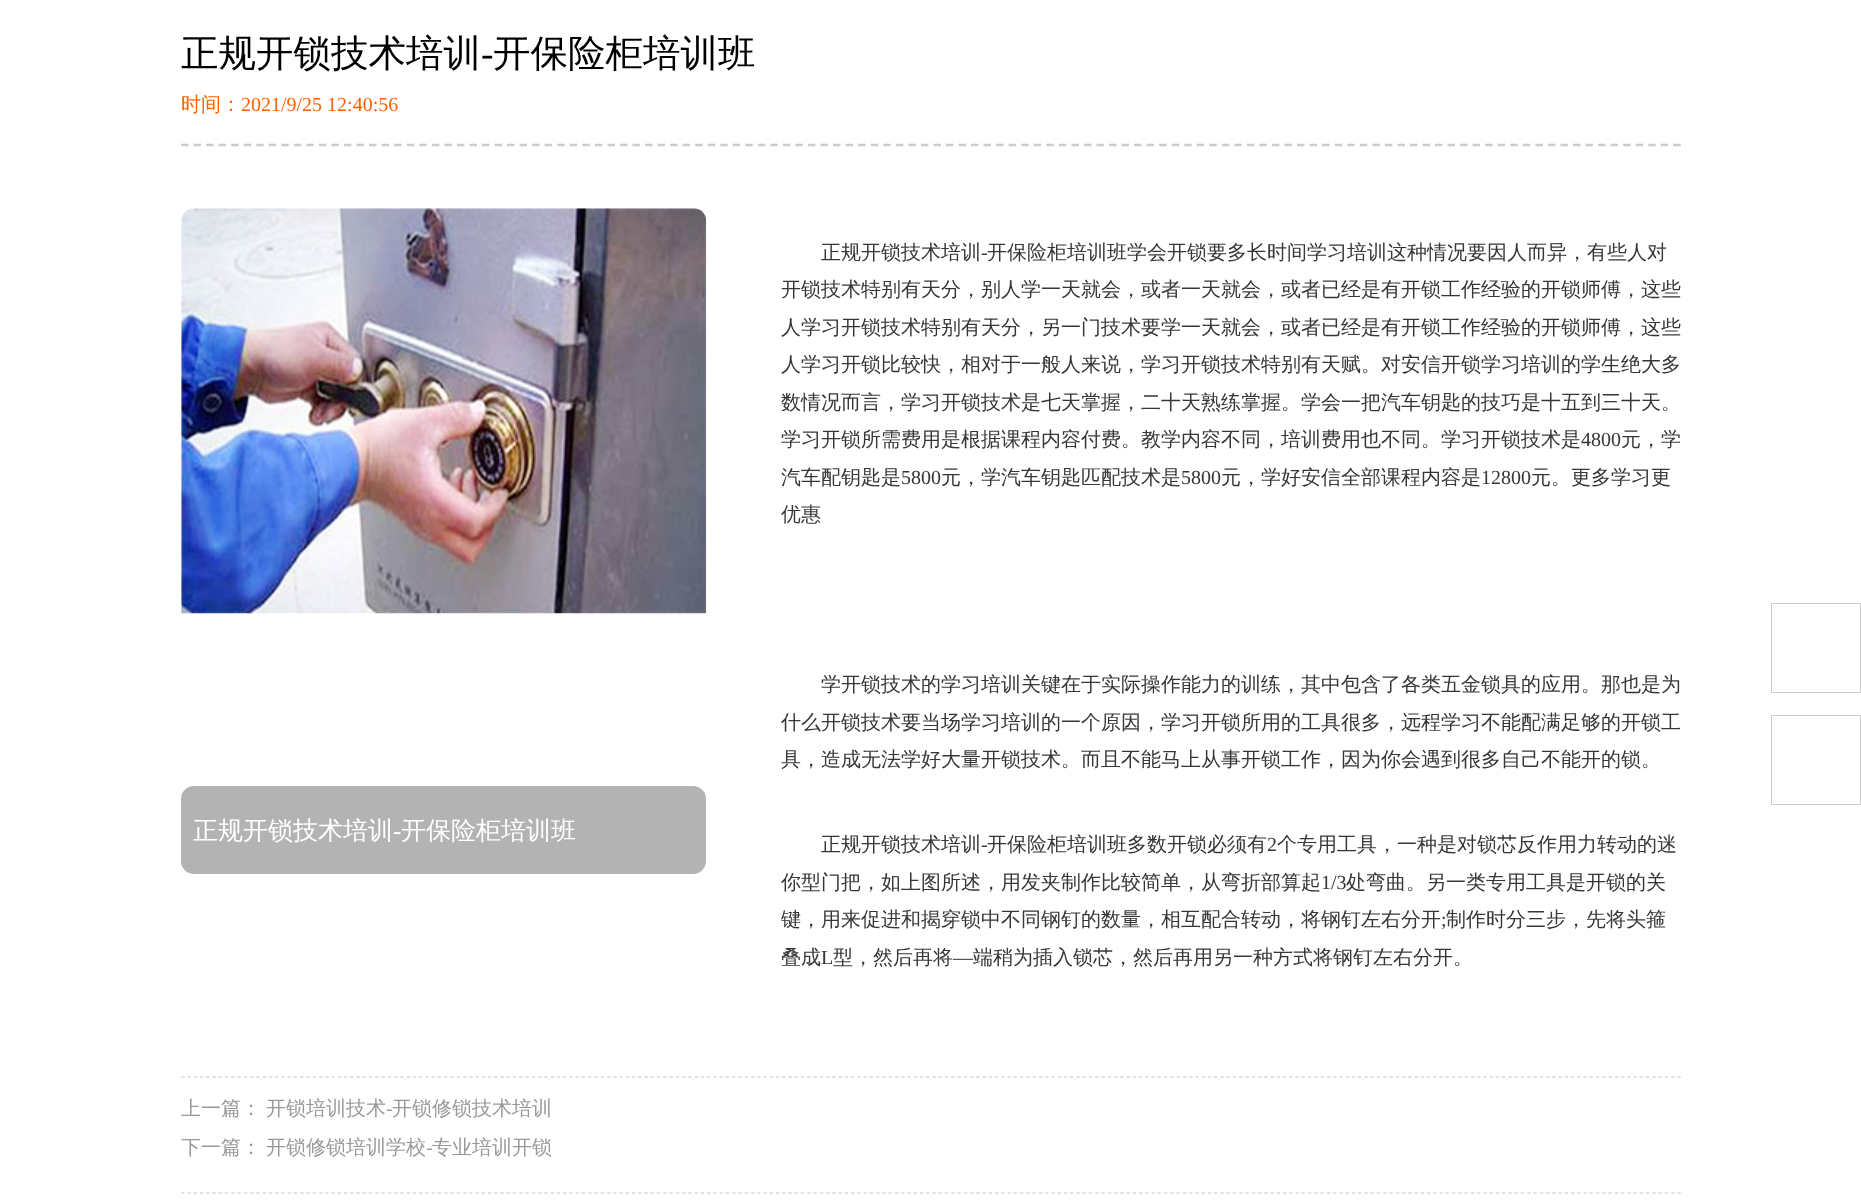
<svg xmlns="http://www.w3.org/2000/svg" width="1861" height="1204">
<style>
.a{font:500 37.5px WenQuanYi Zen Hei;fill:#000}
.b{font:37.5px Liberation Serif;fill:#000}
.c{font:500 20px WenQuanYi Zen Hei;fill:#ff6000}
.d{font:20px Liberation Serif;fill:#ff6000}
.e{font:500 25px WenQuanYi Zen Hei;fill:#fff}
.f{font:25px Liberation Serif;fill:#fff}
.g{font:500 20px WenQuanYi Zen Hei;fill:#363636}
.h{font:20px Liberation Serif;fill:#363636}
.i{font:500 20px WenQuanYi Zen Hei;fill:#999}
.j{font:20px Liberation Serif;fill:#999}
</style>
<rect width="100%" height="100%" fill="#fff"/>
<path fill="none" stroke="#ccc" stroke-width="2.5" stroke-dasharray="7.5 5.04" d="M181 145h1500"/>
<image href="1.png" x="181" y="208" width="526" height="406"/>
<rect fill="#b3b3b3" x="181" y="786" width="525" height="88" rx="13"/>
<path fill="none" stroke="#ccc" stroke-width="1.2" stroke-dasharray="3.75 2.51" d="M181 1077h1500"/>
<path fill="none" stroke="#ccc" stroke-width="1.2" stroke-dasharray="3.75 2.51" d="M181 1193h1500"/>
<path fill="none" stroke="#ccc" d="M1771.5 603.5h89v89H1771.5z"/>
<path fill="none" stroke="#ccc" d="M1771.5 715.5h89v89H1771.5z"/>
<text class="a" x="181" y="66">正规开锁技术培训</text>
<text class="b" x="481" y="66">-</text>
<text class="a" x="493" y="66">开保险柜培训班</text>
<text class="c" x="181" y="111">时间：</text>
<text class="d" x="241" y="111">2021/9/25 12:40:56</text>
<text class="e" x="193" y="839">正规开锁技术培训</text>
<text class="f" x="393" y="839">-</text>
<text class="e" x="401" y="839">开保险柜培训班</text>
<text class="g" x="821" y="259">正规开锁技术培训</text>
<text class="h" x="981" y="259">-</text>
<text class="g" x="987" y="259">开保险柜培训班学会开锁要多长时间学习培训这种情况要因人而异，有些人对</text>
<text class="g" x="781" y="296">开锁技术特别有天分，别人学一天就会，或者一天就会，或者已经是有开锁工作经验的开锁师傅，这些</text>
<text class="g" x="781" y="334">人学习开锁技术特别有天分，另一门技术要学一天就会，或者已经是有开锁工作经验的开锁师傅，这些</text>
<text class="g" x="781" y="371">人学习开锁比较快，相对于一般人来说，学习开锁技术特别有天赋。对安信开锁学习培训的学生绝大多</text>
<text class="g" x="781" y="409">数情况而言，学习开锁技术是七天掌握，二十天熟练掌握。学会一把汽车钥匙的技巧是十五到三十天。</text>
<text class="g" x="781" y="446">学习开锁所需费用是根据课程内容付费。教学内容不同，培训费用也不同。学习开锁技术是</text>
<text class="h" x="1581" y="446">4800</text>
<text class="g" x="1621" y="446">元，学</text>
<text class="g" x="781" y="484">汽车配钥匙是</text>
<text class="h" x="901" y="484">5800</text>
<text class="g" x="941" y="484">元，学汽车钥匙匹配技术是</text>
<text class="h" x="1181" y="484">5800</text>
<text class="g" x="1221" y="484">元，学好安信全部课程内容是</text>
<text class="h" x="1481" y="484">12800</text>
<text class="g" x="1531" y="484">元。更多学习更</text>
<text class="g" x="781" y="521">优惠</text>
<text class="g" x="821" y="691">学开锁技术的学习培训关键在于实际操作能力的训练，其中包含了各类五金锁具的应用。那也是为</text>
<text class="g" x="781" y="729">什么开锁技术要当场学习培训的一个原因，学习开锁所用的工具很多，远程学习不能配满足够的开锁工</text>
<text class="g" x="781" y="766">具，造成无法学好大量开锁技术。而且不能马上从事开锁工作，因为你会遇到很多自己不能开的锁。</text>
<text class="g" x="821" y="851">正规开锁技术培训</text>
<text class="h" x="981" y="851">-</text>
<text class="g" x="987" y="851">开保险柜培训班多数开锁必须有</text>
<text class="h" x="1267" y="851">2</text>
<text class="g" x="1277" y="851">个专用工具，一种是对锁芯反作用力转动的迷</text>
<text class="g" x="781" y="889">你型门把，如上图所述，用发夹制作比较简单，从弯折部算起</text>
<text class="h" x="1321" y="889">1/3</text>
<text class="g" x="1346" y="889">处弯曲。另一类专用工具是开锁的关</text>
<text class="g" x="781" y="926">键，用来促进和揭穿锁中不同钢钉的数量，相互配合转动，将钢钉左右分开</text>
<text class="h" x="1441" y="926">;</text>
<text class="g" x="1446" y="926">制作时分三步，先将头箍</text>
<text class="g" x="781" y="964">叠成</text>
<text class="h" x="821" y="964">L</text>
<text class="g" x="833" y="964">型，然后再将</text>
<text class="h" x="953" y="964">—</text>
<text class="g" x="973" y="964">端稍为插入锁芯，然后再用另一种方式将钢钉左右分开。</text>
<text class="i" x="181" y="1115">上一篇：</text>
<text class="i" x="266" y="1115">开锁培训技术</text>
<text class="j" x="386" y="1115">-</text>
<text class="i" x="392" y="1115">开锁修锁技术培训</text>
<text class="i" x="181" y="1154">下一篇：</text>
<text class="i" x="266" y="1154">开锁修锁培训学校</text>
<text class="j" x="426" y="1154">-</text>
<text class="i" x="432" y="1154">专业培训开锁</text>
</svg>
